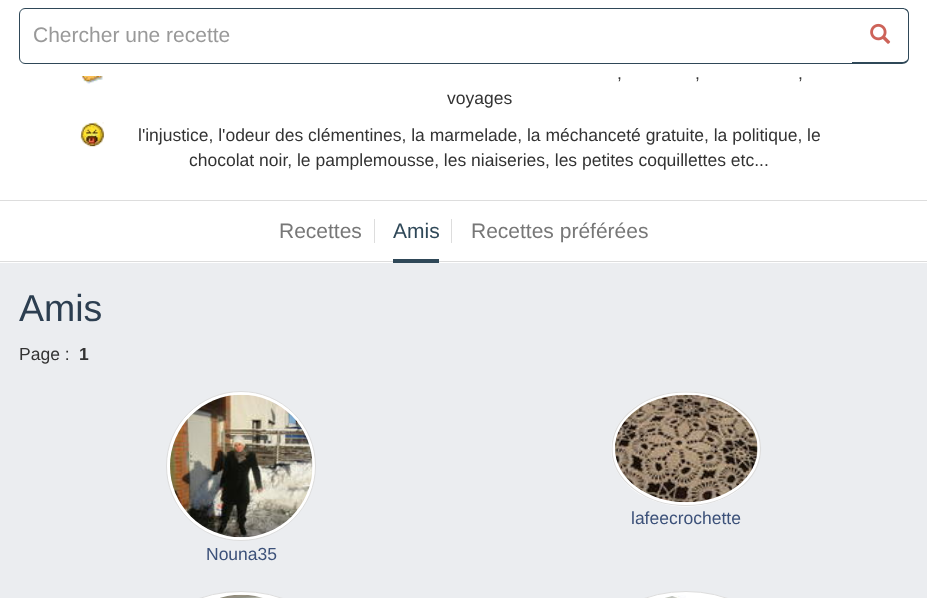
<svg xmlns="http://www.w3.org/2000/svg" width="927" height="598">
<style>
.a{font:21px Liberation Sans;fill:#999}
.b{font:17.5px Liberation Sans;fill:#333}
.c{font:21px Liberation Sans;fill:#777}
.d{font:21px Liberation Sans;fill:#2f4858}
.e{font:37.5px Liberation Sans;fill:#2c3e50}
.f{font:bold 17.5px Liberation Sans;fill:#333}
.g{font:17.5px Liberation Sans;fill:#3c5179}
</style>
<rect width="100%" height="100%" fill="#ebedf0"/>
<path fill="#fff" d="M0 0h927v200H0z"/>
<path fill="none" stroke="#2f4858" d="M25 8.5h828.5v55h-828.5c-3 0-5.5-2.5-5.5-5.5v-44c0-3 2.5-5.5 5.5-5.5z"/>
<path fill="#fff" d="M853 8h50c3.5 0 6 2.5 6 6v44c0 3.5-2.5 6-6 6h-50z"/>
<path fill="#2f4858" fill-rule="evenodd" d="M852 8h50c4 0 7 2 7 6v44c0 3-3 6-7 6h-50zm0 1h50c3 0 6 2 6 5v44c0 2-3 4-6 4h-50z"/>
<image href="1.png" x="870" y="23" width="21" height="21"/>
<image href="2.png" x="81" y="76" width="22" height="8"/>
<image href="3.png" x="80" y="122" width="25" height="25"/>
<path fill="#fff" d="M0 201h927v62H0z"/>
<path fill="#ddd" d="M0 200h927v1H0z"/>
<path fill="#ddd" d="M0 261h927v1H0z"/>
<path fill="#ddd" d="M374 219h1v24H374z"/>
<path fill="#2f4858" d="M393 259h46v4H393z"/>
<path fill="#ddd" d="M451 219h1v24H451z"/>
<ellipse fill="#fff" cx="686" cy="449" rx="75" ry="57.5"/>
<path fill="none" stroke="#ddd" stroke-width="1.2" d="M686 392c41.5 0 74.5 25.5 74.5 57c0 31-33 56.5-74.5 56.5c-41 0-74-25.5-74-56.5c0-31.5 33-57 74-57z"/>
<image href="4.png" x="615" y="394" width="143" height="109"/>
<circle fill="#fff" stroke="#ddd" cx="241" cy="466" r="74.5"/>
<image href="5.png" x="170" y="394" width="143" height="144"/>
<rect fill="#fff" stroke="#ddd" x="166.5" y="591.5" width="149" height="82" rx="74.5"/>
<image href="6.png" x="220" y="594" width="43" height="4"/>
<rect fill="#fff" stroke="#ddd" x="611.5" y="591.5" width="149" height="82" rx="74.5"/>
<image href="7.png" x="665" y="595" width="21" height="3"/>
<text class="a" x="33" y="42">Chercher une recette</text>
<text class="b" x="617" y="79">,</text>
<text class="b" x="695" y="79">,</text>
<text class="b" x="798" y="79">,</text>
<text class="b" x="447" y="104">voyages</text>
<text class="b" x="138" y="141">l'injustice, l'odeur des clémentines, la marmelade, la méchanceté gratuite, la politique, le</text>
<text class="b" x="189" y="166">chocolat noir, le pamplemousse, les niaiseries, les petites coquillettes etc...</text>
<text class="c" x="279" y="238">Recettes</text>
<text class="d" x="393" y="238">Amis</text>
<text class="c" x="471" y="238">Recettes préférées</text>
<text class="e" x="19" y="321">Amis</text>
<text class="b" x="19" y="360">Page :</text>
<text class="f" x="79" y="360">1</text>
<text class="g" x="631" y="524">lafeecrochette</text>
<text class="g" x="206" y="560">Nouna35</text>
</svg>
